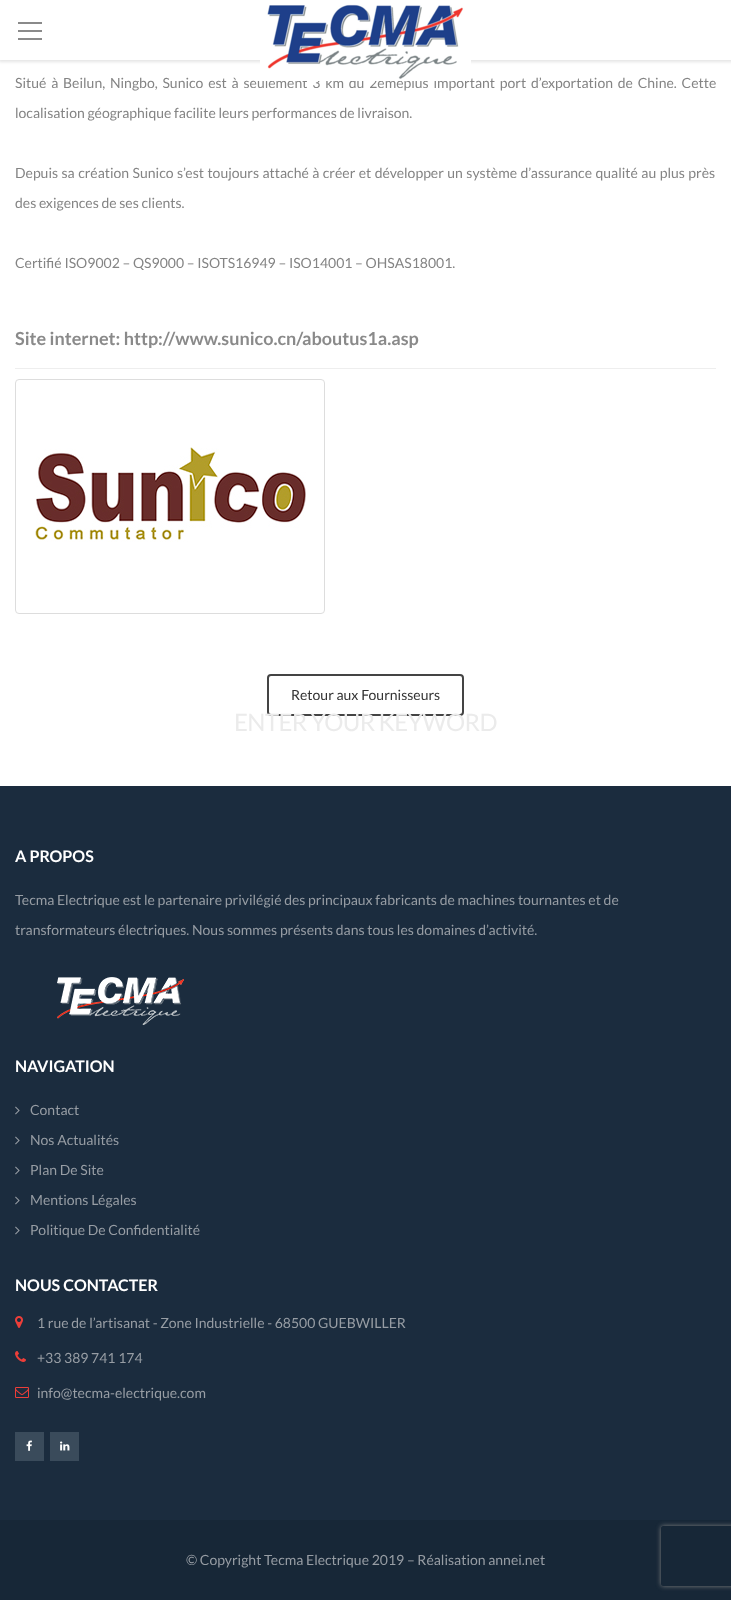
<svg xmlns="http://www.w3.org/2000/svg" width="731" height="1600">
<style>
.a{font:14px Lato;fill:#848484}
.b{font:bold 18px Lato;fill:#8a8a8a}
.c{font:14px Lato;fill:#333}
.d{font:24px Lato;letter-spacing:-0.6px;fill:#ebebeb}
.e{font:bold 16px Lato;fill:#fff}
.f{font:14px Lato;fill:#979da4}
</style>
<defs>
<clipPath id="clip1"><path d="M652 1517h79v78h-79zm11 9h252c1 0 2 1 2 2v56c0 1-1 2-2 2h-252c-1 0-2-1-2-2v-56c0-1 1-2 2-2z" clip-rule="evenodd"/></clipPath>
</defs>
<rect width="100%" height="100%" fill="#fff"/>
<path fill="#0000001a" filter="blur(1.5px)" d="M-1 -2h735v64H-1z"/>
<path fill="#fff" d="M0 0h731v60H0z"/>
<path fill="#8a8a8a" d="M18 22h24v2H18z"/>
<path fill="#8a8a8a" d="M18 30h24v2H18z"/>
<path fill="#8a8a8a" d="M18 38h24v2H18z"/>
<path fill="#eee" d="M15 368h701v1H15z"/>
<rect fill="none" stroke="#ddd" x="15.5" y="379.5" width="309" height="234" rx="3.5"/>
<image href="2.png" x="35" y="447" width="271" height="95"/>
<rect fill="none" stroke="#444" stroke-width="2" x="268" y="675" width="195" height="40" rx="3"/>
<path fill="#1b2c3e" d="M0 786h731v734H0z"/>
<image href="3.png" x="57" y="977" width="127" height="48"/>
<image href="4.png" x="15" y="1106" width="5" height="9"/>
<image href="4.png" x="15" y="1136" width="5" height="9"/>
<image href="4.png" x="15" y="1166" width="5" height="9"/>
<image href="4.png" x="15" y="1196" width="5" height="9"/>
<image href="4.png" x="15" y="1226" width="5" height="9"/>
<image href="5.png" x="15" y="1316" width="8" height="12"/>
<image href="6.png" x="15" y="1351" width="11" height="11"/>
<image href="7.png" x="15" y="1387" width="14" height="11"/>
<path fill="#3a4b5b" d="M15 1432h29v29H15z"/>
<image href="8.png" x="26" y="1440" width="6" height="11"/>
<path fill="#3a4b5b" d="M50 1432h29v29H50z"/>
<image href="9.png" x="60" y="1441" width="10" height="10"/>
<path fill="#172737" d="M0 1520h731v80H0z"/>
<g clip-path="url(#clip1)">
<rect fill="#808080" filter="blur(2.5px)" x="661" y="1526" width="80" height="60" rx="2"/>
</g>
<text class="a" x="15" y="88" word-spacing="2.1">Situé à Beilun, Ningbo, Sunico est à seulement 3 km du 2èmeplus important port d’exportation de Chine. Cette</text>
<image href="1.png" x="260" y="4" width="211" height="77"/>
<text class="a" x="15" y="118">localisation géographique facilite leurs performances de livraison.</text>
<text class="a" x="15" y="178" word-spacing="0.75">Depuis sa création Sunico s’est toujours attaché à créer et développer un système d’assurance qualité au plus près</text>
<text class="a" x="15" y="208">des exigences de ses clients.</text>
<text class="a" x="15" y="268">Certifié ISO9002 – QS9000 – ISOTS16949 – ISO14001 – OHSAS18001.</text>
<text class="b" x="15" y="345">Site internet: http://www.sunico.cn/aboutus1a.asp</text>
<text class="c" x="291" y="700">Retour aux Fournisseurs</text>
<text class="d" x="234" y="731">ENTER YOUR KEYWORD</text>
<text class="e" x="15" y="862">A PROPOS</text>
<text class="f" x="15" y="905">Tecma Electrique est le partenaire privilégié des principaux fabricants de machines tournantes et de</text>
<text class="f" x="15" y="935">transformateurs électriques. Nous sommes présents dans tous les domaines d’activité.</text>
<text class="e" x="15" y="1072">NAVIGATION</text>
<text class="f" x="30" y="1115">Contact</text>
<text class="f" x="30" y="1145">Nos Actualités</text>
<text class="f" x="30" y="1175">Plan De Site</text>
<text class="f" x="30" y="1205">Mentions Légales</text>
<text class="f" x="30" y="1235">Politique De Confidentialité</text>
<text class="e" x="15" y="1291">NOUS CONTACTER</text>
<text class="f" x="37" y="1328">1 rue de l’artisanat - Zone Industrielle - 68500 GUEBWILLER</text>
<text class="f" x="37" y="1363">+33 389 741 174</text>
<text class="f" x="37" y="1398">info@tecma-electrique.com</text>
<text class="f" x="186" y="1565">© Copyright Tecma Electrique 2019 – Réalisation annei.net</text>
</svg>
